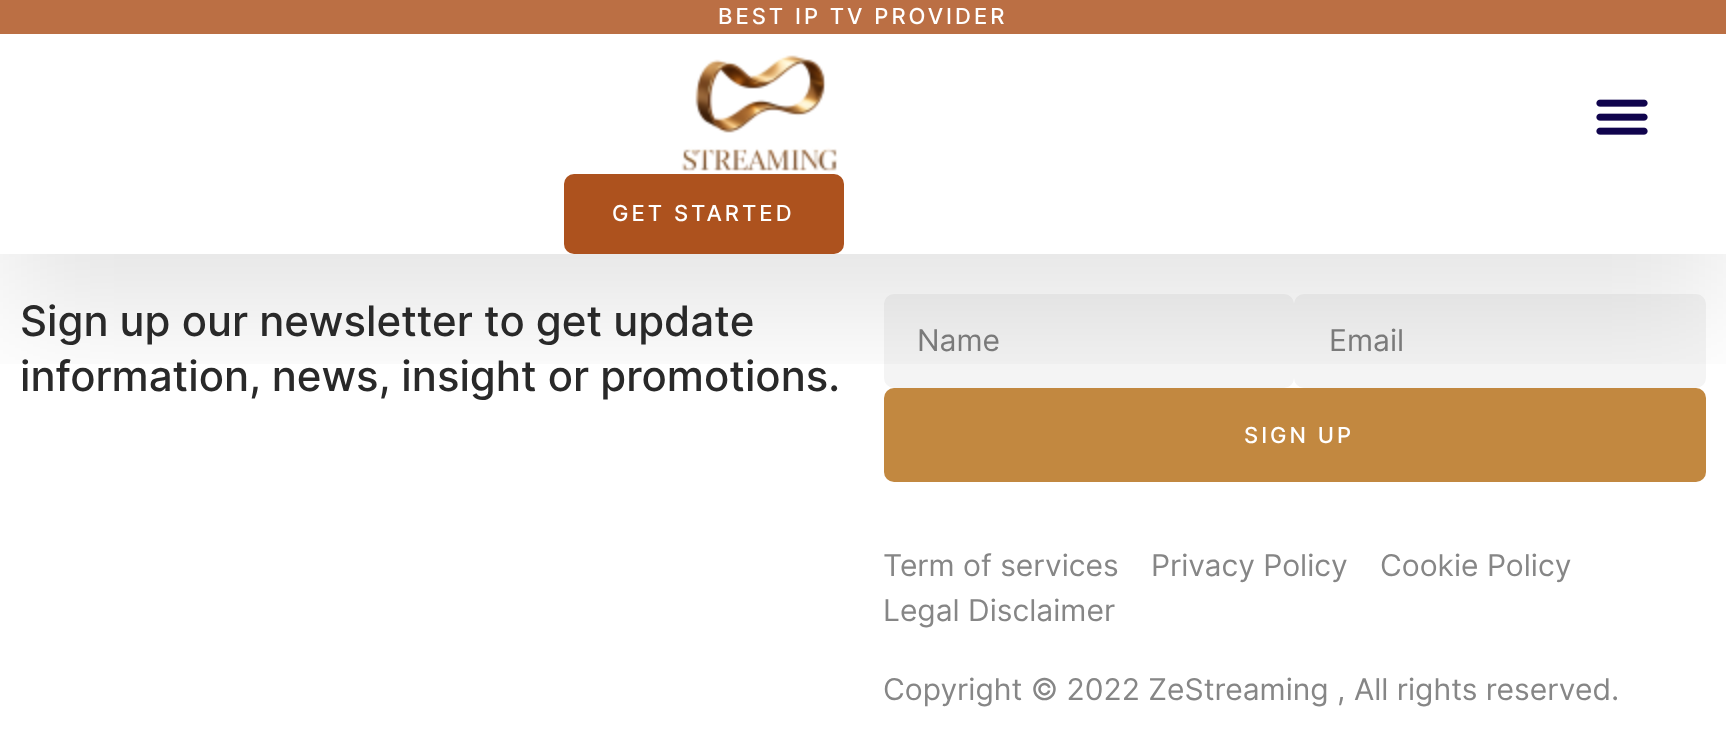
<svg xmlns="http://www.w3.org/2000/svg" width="1726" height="755">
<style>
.a{font:500 22px Inter;letter-spacing:3px;fill:#fff}
.b{font:500 42px Inter;fill:#292929}
.c{font:30px Inter;fill:#7a7a7a}
.d{font:30px Inter;fill:#868686}
</style>
<defs>
<clipPath id="clip1"><path d="M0 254h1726v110H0z"/></clipPath>
</defs>
<rect width="100%" height="100%" fill="#fff"/>
<path fill="#bb6f44" d="M0 0h1726v34H0z"/>
<rect fill="#f4f4f4" stroke="#f4f4f4" stroke-width="2" x="885" y="295" width="408" height="92" rx="9"/>
<rect fill="#f4f4f4" stroke="#f4f4f4" stroke-width="2" x="1295" y="295" width="410" height="92" rx="9"/>
<rect fill="#c28840" x="884" y="388" width="822" height="94" rx="10"/>
<g clip-path="url(#clip1)">
<path fill="#0000001a" filter="blur(60px)" d="M0 114h1726v200H0z"/>
</g>
<image href="1.png" x="681" y="55" width="157" height="117"/>
<image href="2.png" x="1596" y="99" width="52" height="36"/>
<rect fill="#ad521e" x="564" y="174" width="280" height="80" rx="10"/>
<text class="a" x="718" y="24">BEST IP TV PROVIDER</text>
<text class="a" x="612" y="221">GET STARTED</text>
<text class="b" x="20" y="336">Sign up our newsletter to get update</text>
<text class="b" x="20" y="391">information, news, insight or promotions.</text>
<text class="c" x="917" y="351">Name</text>
<text class="c" x="1329" y="351">Email</text>
<text class="a" x="1244" y="443">SIGN UP</text>
<text class="d" x="883" y="576">Term of services</text>
<text class="d" x="1151" y="576">Privacy Policy</text>
<text class="d" x="1380" y="576">Cookie Policy</text>
<text class="d" x="883" y="621">Legal Disclaimer</text>
<text class="d" x="883" y="700">Copyright © 2022 ZeStreaming , All rights reserved.</text>
</svg>
